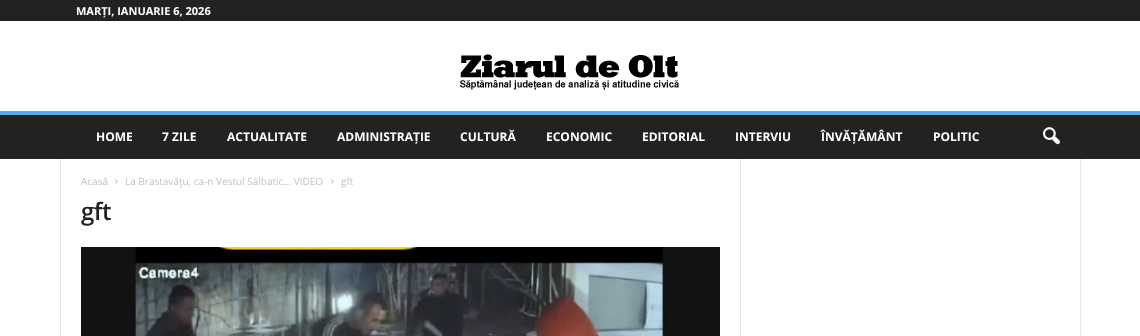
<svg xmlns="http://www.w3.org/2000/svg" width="1140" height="336">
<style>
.a{font:bold 11px Open Sans;fill:#fff}
.b{font:bold 12px Open Sans;fill:#fff}
.c{font:10px Open Sans;fill:#c3c3c3}
.d{font:600 24px Open Sans;letter-spacing:-0.5px;fill:#222}
</style>
<rect width="100%" height="100%" fill="#fff"/>
<path fill="#222" d="M0 0h1140v21H0z"/>
<image href="1.png" x="460" y="54" width="219" height="37"/>
<path fill="#222" d="M0 115h1140v44H0z"/>
<path fill="#4db2ec" d="M0 111h1140v4H0z"/>
<image href="2.png" x="1043" y="127" width="17" height="18"/>
<path fill="#e6e6e6" d="M60 159h1v177H60z"/>
<image href="3.png" x="115" y="179" width="3" height="5"/>
<image href="3.png" x="331" y="179" width="3" height="5"/>
<image href="4.png" x="81" y="247" width="639" height="89"/>
<path fill="#e6e6e6" d="M740 159h1v177H740z"/>
<path fill="#e6e6e6" d="M1080 159h1v177H1080z"/>
<text class="a" x="76" y="15">MARȚI, IANUARIE 6, 2026</text>
<text class="b" x="96" y="141">HOME</text>
<text class="b" x="162" y="141">7 ZILE</text>
<text class="b" x="227" y="141">ACTUALITATE</text>
<text class="b" x="337" y="141">ADMINISTRAȚIE</text>
<text class="b" x="460" y="141">CULTURĂ</text>
<text class="b" x="546" y="141">ECONOMIC</text>
<text class="b" x="642" y="141">EDITORIAL</text>
<text class="b" x="735" y="141">INTERVIU</text>
<text class="b" x="821" y="141">ÎNVĂȚĂMÂNT</text>
<text class="b" x="933" y="141">POLITIC</text>
<text class="c" x="81" y="185">Acasă</text>
<text class="c" x="125" y="185">La Brastavăţu, ca-n Vestul Sălbatic… VIDEO</text>
<text class="c" x="341" y="185">gft</text>
<text class="d" x="81" y="220">gft</text>
</svg>
